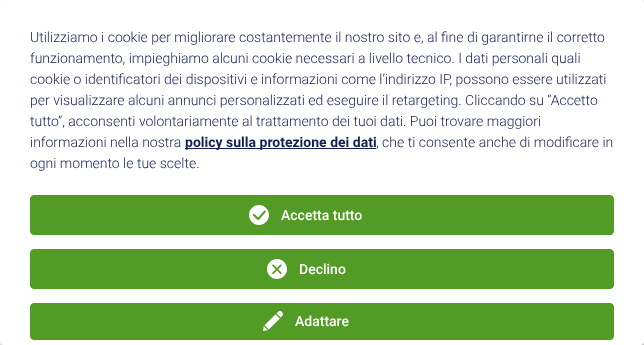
<svg xmlns="http://www.w3.org/2000/svg" width="644" height="345">
<style>
.a{font:300 14px Roboto;fill:#161f57}
.b{font:bold 14px Roboto;fill:#161f57}
.c{font:500 14px Roboto;fill:#fff}
</style>
<rect width="100%" height="100%" fill="#fff"/>
<rect fill="#00000030" filter="blur(5px)" x="5" y="5" width="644" height="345" rx="4"/>
<rect fill="#00000033" filter="blur(3px)" y="4" width="644" height="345" rx="4"/>
<rect fill="#fff" width="644" height="345" rx="4"/>
<path fill="#161f57" d="M185 148h191v1H185z"/>
<rect fill="#529b25" stroke="#529b25" x="30.5" y="195.5" width="583" height="39" rx="3.5"/>
<image href="1.png" x="249" y="205" width="20" height="20"/>
<rect fill="#529b25" stroke="#529b25" x="30.5" y="249.5" width="583" height="39" rx="3.5"/>
<image href="2.png" x="267" y="259" width="20" height="20"/>
<rect fill="#529b25" stroke="#529b25" x="30.5" y="303.5" width="583" height="36" rx="3.5"/>
<image href="3.png" x="263" y="311" width="20" height="20"/>
<text class="a" x="30" y="42">Utilizziamo i cookie per migliorare costantemente il nostro sito e, al fine di garantirne il corretto</text>
<text class="a" x="30" y="63">funzionamento, impieghiamo alcuni cookie necessari a livello tecnico. I dati personali quali</text>
<text class="a" x="30" y="84">cookie o identificatori dei dispositivi e informazioni come l’indirizzo IP, possono essere utilizzati</text>
<text class="a" x="30" y="105">per visualizzare alcuni annunci personalizzati ed eseguire il retargeting. Cliccando su “Accetto</text>
<text class="a" x="30" y="126">tutto”, acconsenti volontariamente al trattamento dei tuoi dati. Puoi trovare maggiori</text>
<text class="a" x="30" y="147">informazioni nella nostra</text>
<text class="b" x="185" y="147">policy sulla protezione dei dati</text>
<text class="a" x="376" y="147">, che ti consente anche di modificare in</text>
<text class="a" x="30" y="168">ogni momento le tue scelte.</text>
<text class="c" x="281" y="220">Accetta tutto</text>
<text class="c" x="299" y="274">Declino</text>
<text class="c" x="295" y="326">Adattare</text>
</svg>
